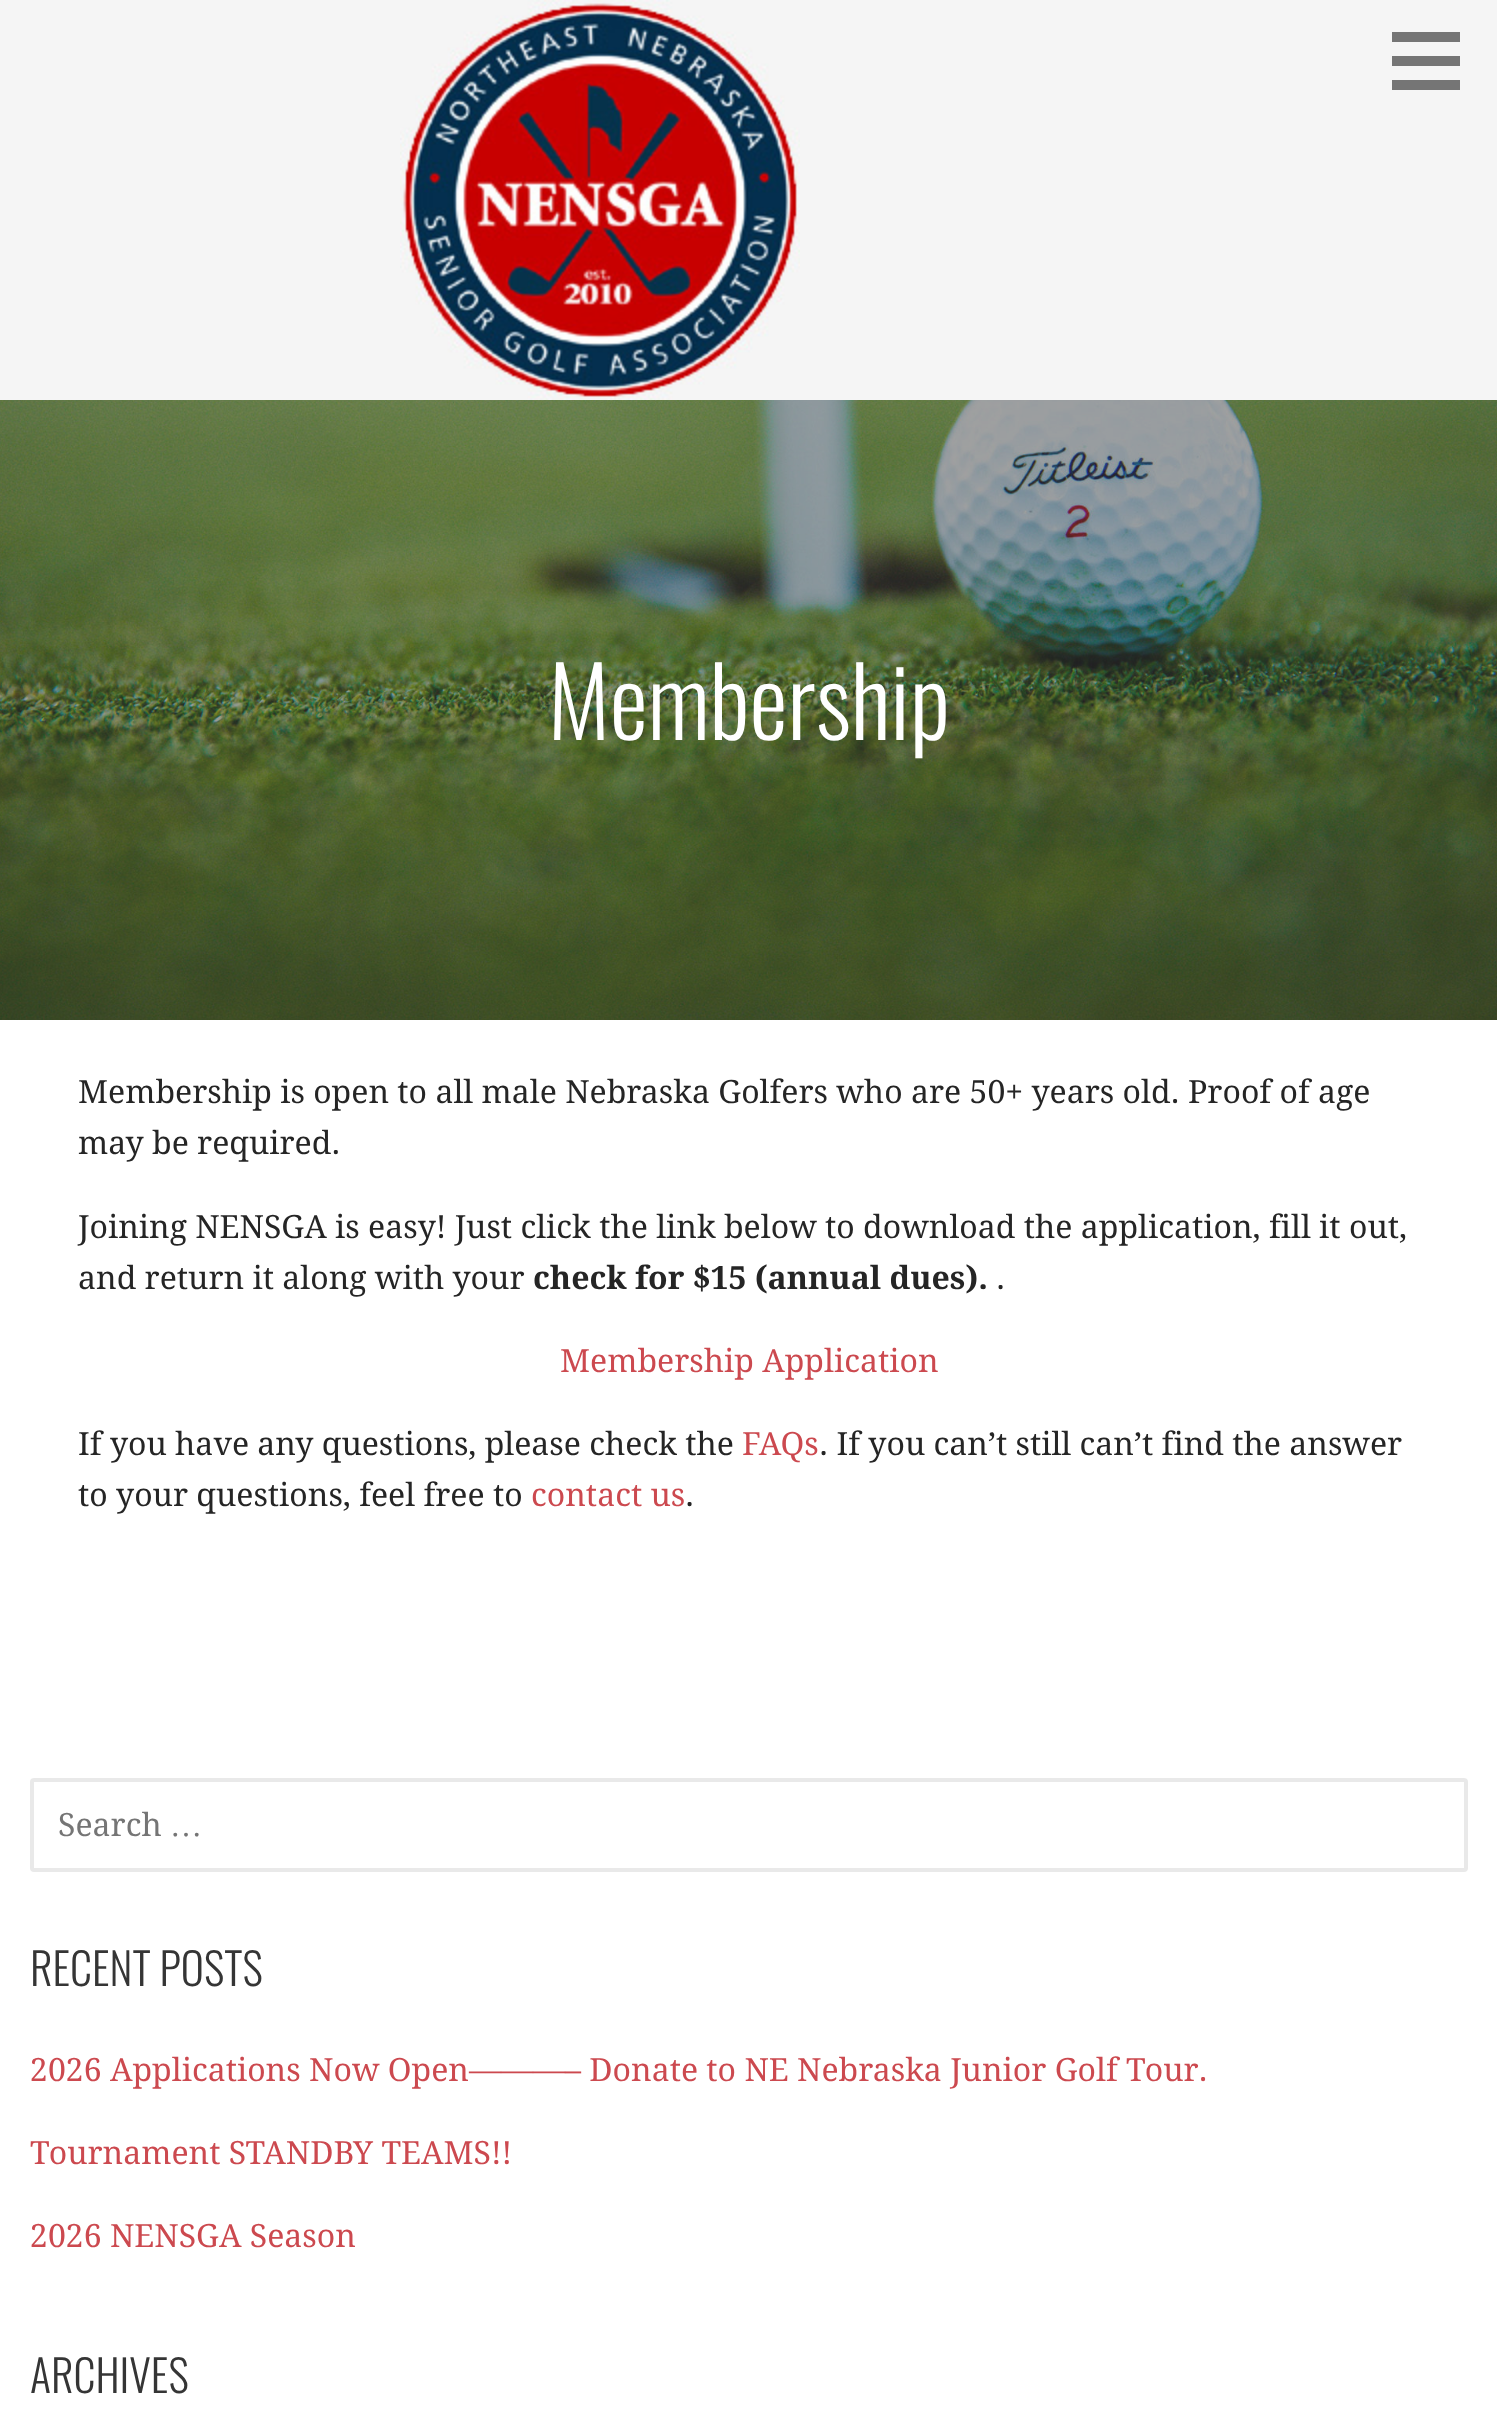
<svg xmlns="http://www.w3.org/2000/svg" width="1497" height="2427">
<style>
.a{font:300 96px Oswald;fill:#fff}
.b{font:32px Droid Serif;fill:#252525}
.c{font:bold 32px Droid Serif;fill:#252525}
.d{font:32px Droid Serif;fill:#cc494f}
.e{font:32px Droid Serif;fill:#757575}
.f{font:32px Liberation Serif;fill:#757575}
.g{font:300 44px Oswald;fill:#353535}
</style>
<rect width="100%" height="100%" fill="#fff"/>
<image href="1.png" x="0" y="400" width="1497" height="620"/>
<path fill="#f5f5f5" d="M0 0h1497v400H0z"/>
<image href="2.png" x="400" y="0" width="400" height="400"/>
<path fill="#757575" d="M1392 32h68v10H1392z"/>
<path fill="#757575" d="M1392 56h68v10H1392z"/>
<path fill="#757575" d="M1392 80h68v10H1392z"/>
<rect fill="none" stroke="#e9e9e9" stroke-width="4" x="32" y="1780" width="1434" height="90" rx="2"/>
<text class="a" x="548" y="740">Membership</text>
<text class="b" x="78" y="1103">Membership is open to all male Nebraska Golfers who are 50+ years old. Proof of age</text>
<text class="b" x="78" y="1154">may be required.</text>
<text class="b" x="78" y="1238">Joining NENSGA is easy! Just click the link below to download the application, fill it out,</text>
<text class="b" x="78" y="1289">and return it along with your</text>
<text class="c" x="533" y="1289">check for $15 (annual dues).</text>
<text class="b" x="996" y="1289">.</text>
<text class="d" x="560" y="1372">Membership Application</text>
<text class="b" x="78" y="1455">If you have any questions, please check the</text>
<text class="d" x="742" y="1455">FAQs</text>
<text class="b" x="819" y="1455">. If you can’t still can’t find the answer</text>
<text class="b" x="78" y="1506">to your questions, feel free to</text>
<text class="d" x="531" y="1506">contact us</text>
<text class="b" x="685" y="1506">.</text>
<text class="e" x="58" y="1836">Search</text>
<text class="f" x="170" y="1836">…</text>
<text class="g" x="30" y="1986">RECENT POSTS</text>
<text class="d" x="30" y="2081">2026 Applications Now Open———– Donate to NE Nebraska Junior Golf Tour.</text>
<text class="d" x="30" y="2164">Tournament STANDBY TEAMS!!</text>
<text class="d" x="30" y="2247">2026 NENSGA Season</text>
<text class="g" x="30" y="2393">ARCHIVES</text>
</svg>
